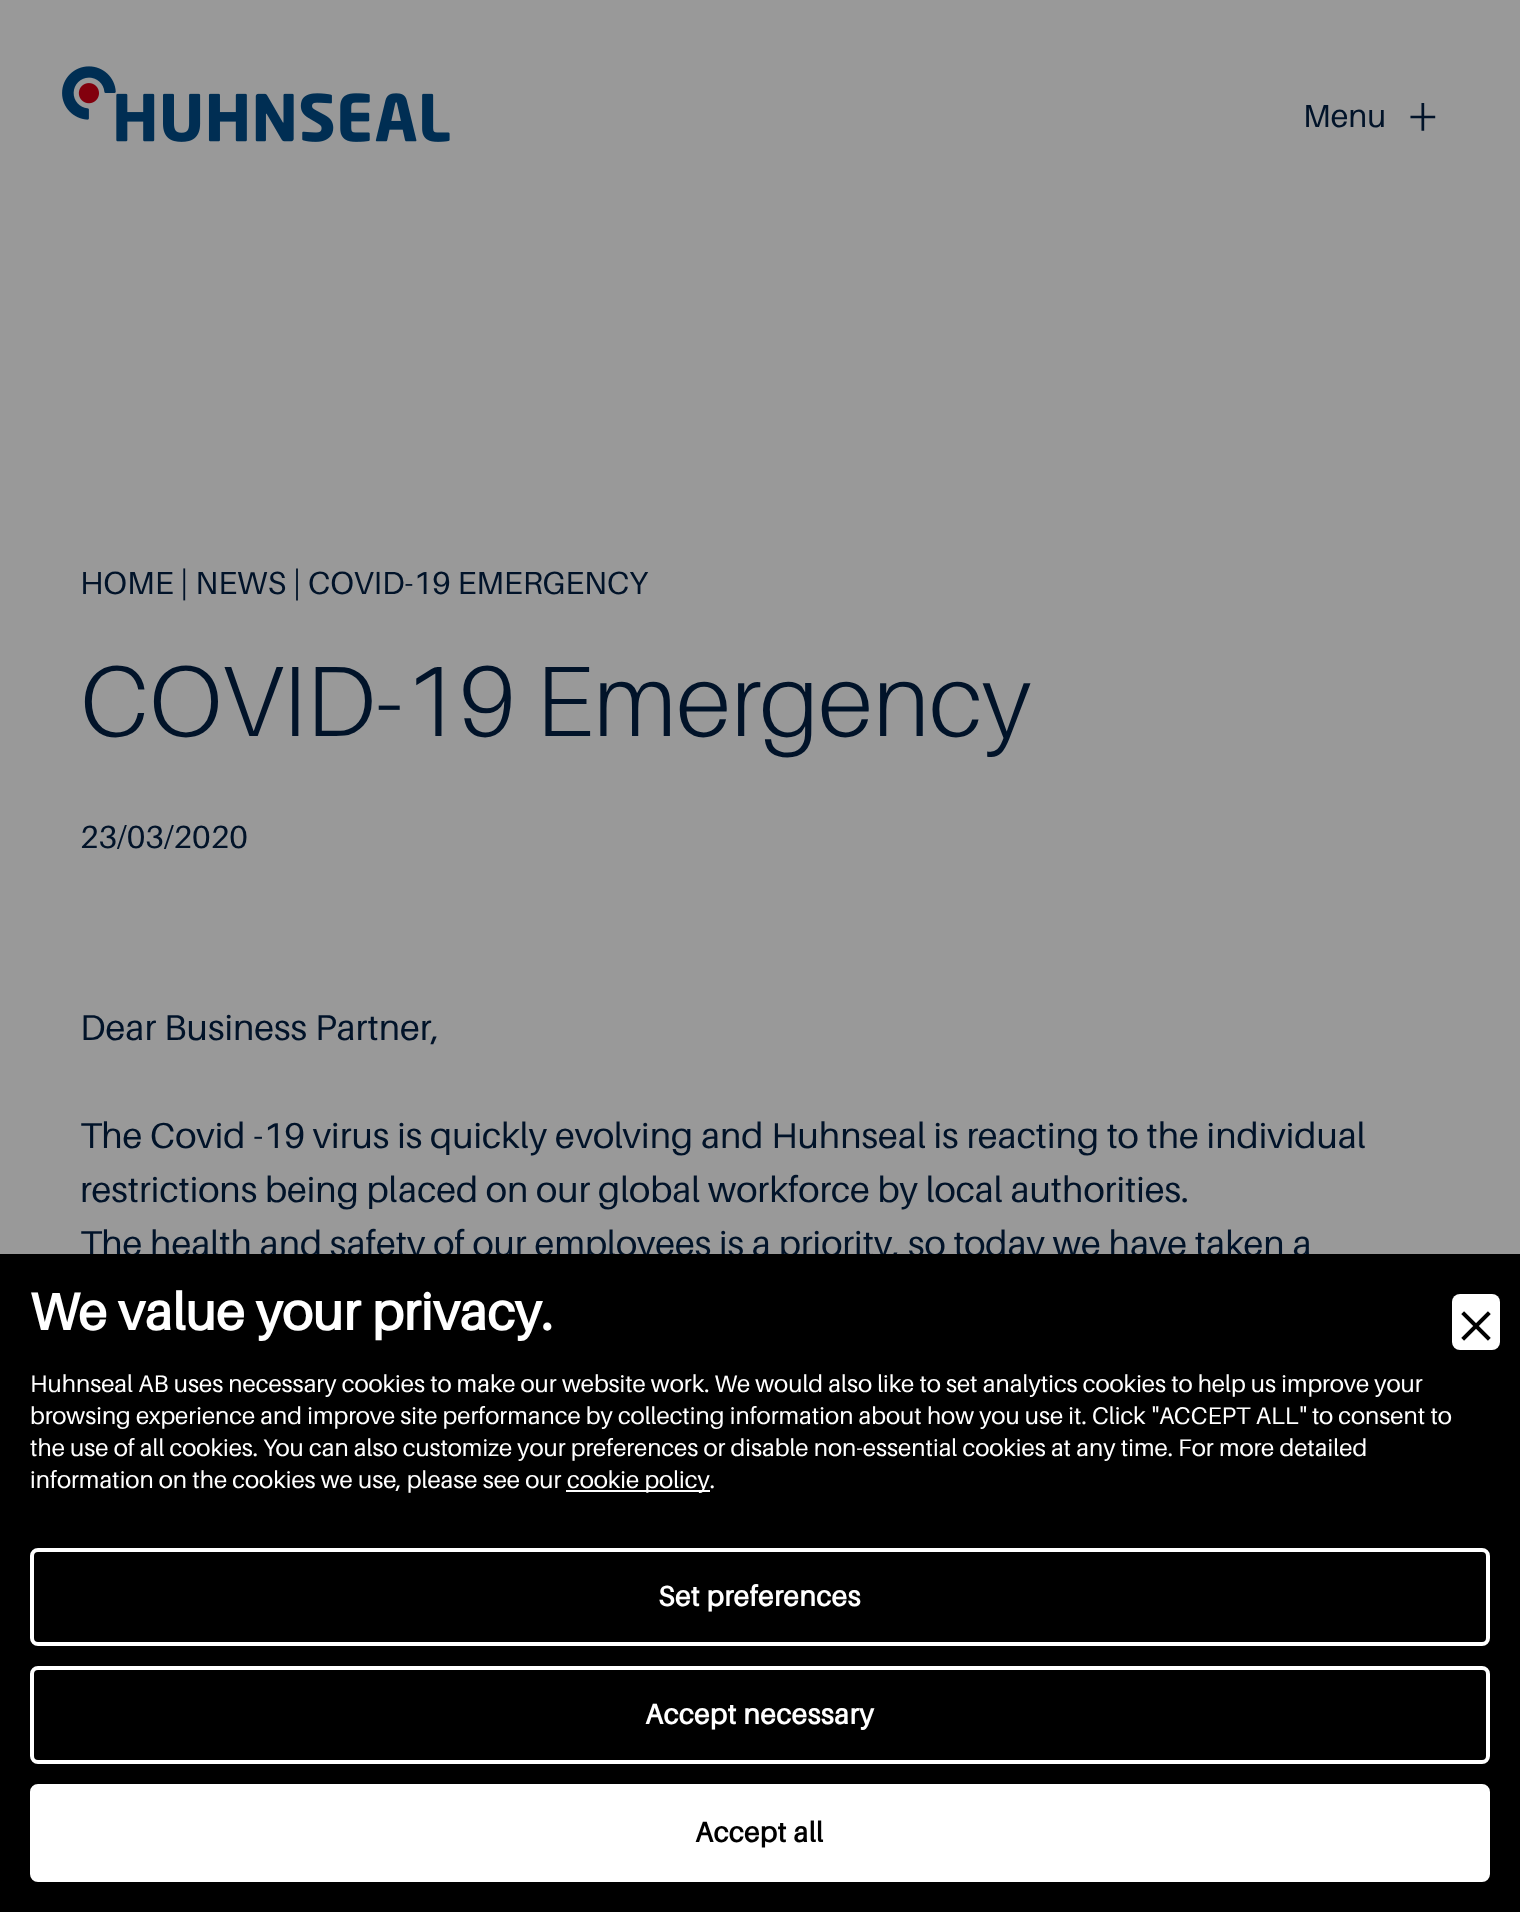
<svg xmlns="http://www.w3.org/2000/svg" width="1520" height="1912">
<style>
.a{font:32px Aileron;fill:#011329}
.b{font:300 60px Aileron;fill:#011329}
.c{font:300 100px Aileron;fill:#011329}
.d{font:36px Aileron;fill:#011329}
.e{font:bold 52px Aileron;fill:#fff}
.f{font:24px Aileron;fill:#fff}
.g{font:bold 28px Aileron;letter-spacing:0.5px;fill:#fff}
.h{font:bold 28px Aileron;letter-spacing:0.5px;fill:#000}
</style>
<rect width="100%" height="100%" fill="#999"/>
<image href="1.png" x="62" y="66" width="388" height="76"/>
<text class="a" x="1303" y="127">Menu</text>
<text class="b" x="1406" y="136">+</text>
<text class="a" x="80" y="594">HOME | NEWS | COVID-19 EMERGENCY</text>
<text class="c" x="80" y="736">COVID-19 Emergency</text>
<text class="a" x="80" y="848">23/03/2020</text>
<text class="d" x="80" y="1040">Dear Business Partner,</text>
<text class="d" x="80" y="1148">The Covid -19 virus is quickly evolving and Huhnseal is reacting to the individual</text>
<text class="d" x="80" y="1202">restrictions being placed on our global workforce by local authorities.</text>
<text class="d" x="80" y="1256">The health and safety of our employees is a priority, so today we have taken a</text>
<path fill="#000" d="M0 1254h1520v658H0z"/>
<text class="e" x="30" y="1330">We value your privacy.</text>
<rect fill="#fff" x="1452" y="1294" width="48" height="56" rx="8"/>
<image href="2.png" x="1461" y="1311" width="30" height="30"/>
<text class="f" x="30" y="1392">Huhnseal AB uses necessary cookies to make our website work. We would also like to set analytics cookies to help us improve your</text>
<text class="f" x="30" y="1424">browsing experience and improve site performance by collecting information about how you use it. Click "ACCEPT ALL" to consent to</text>
<text class="f" x="30" y="1456">the use of all cookies. You can also customize your preferences or disable non-essential cookies at any time. For more detailed</text>
<text class="f" x="30" y="1488">information on the cookies we use, please see our</text>
<path fill="#fff" d="M566 1490h144v2H566z"/>
<text class="f" x="567" y="1488">cookie policy.</text>
<rect fill="none" stroke="#fff" stroke-width="4" x="32" y="1550" width="1456" height="94" rx="6"/>
<text class="g" x="658" y="1606">Set preferences</text>
<rect fill="none" stroke="#fff" stroke-width="4" x="32" y="1668" width="1456" height="94" rx="6"/>
<text class="g" x="645" y="1724">Accept necessary</text>
<rect fill="#fff" stroke="#fff" stroke-width="4" x="32" y="1786" width="1456" height="94" rx="6"/>
<text class="h" x="695" y="1842">Accept all</text>
</svg>
